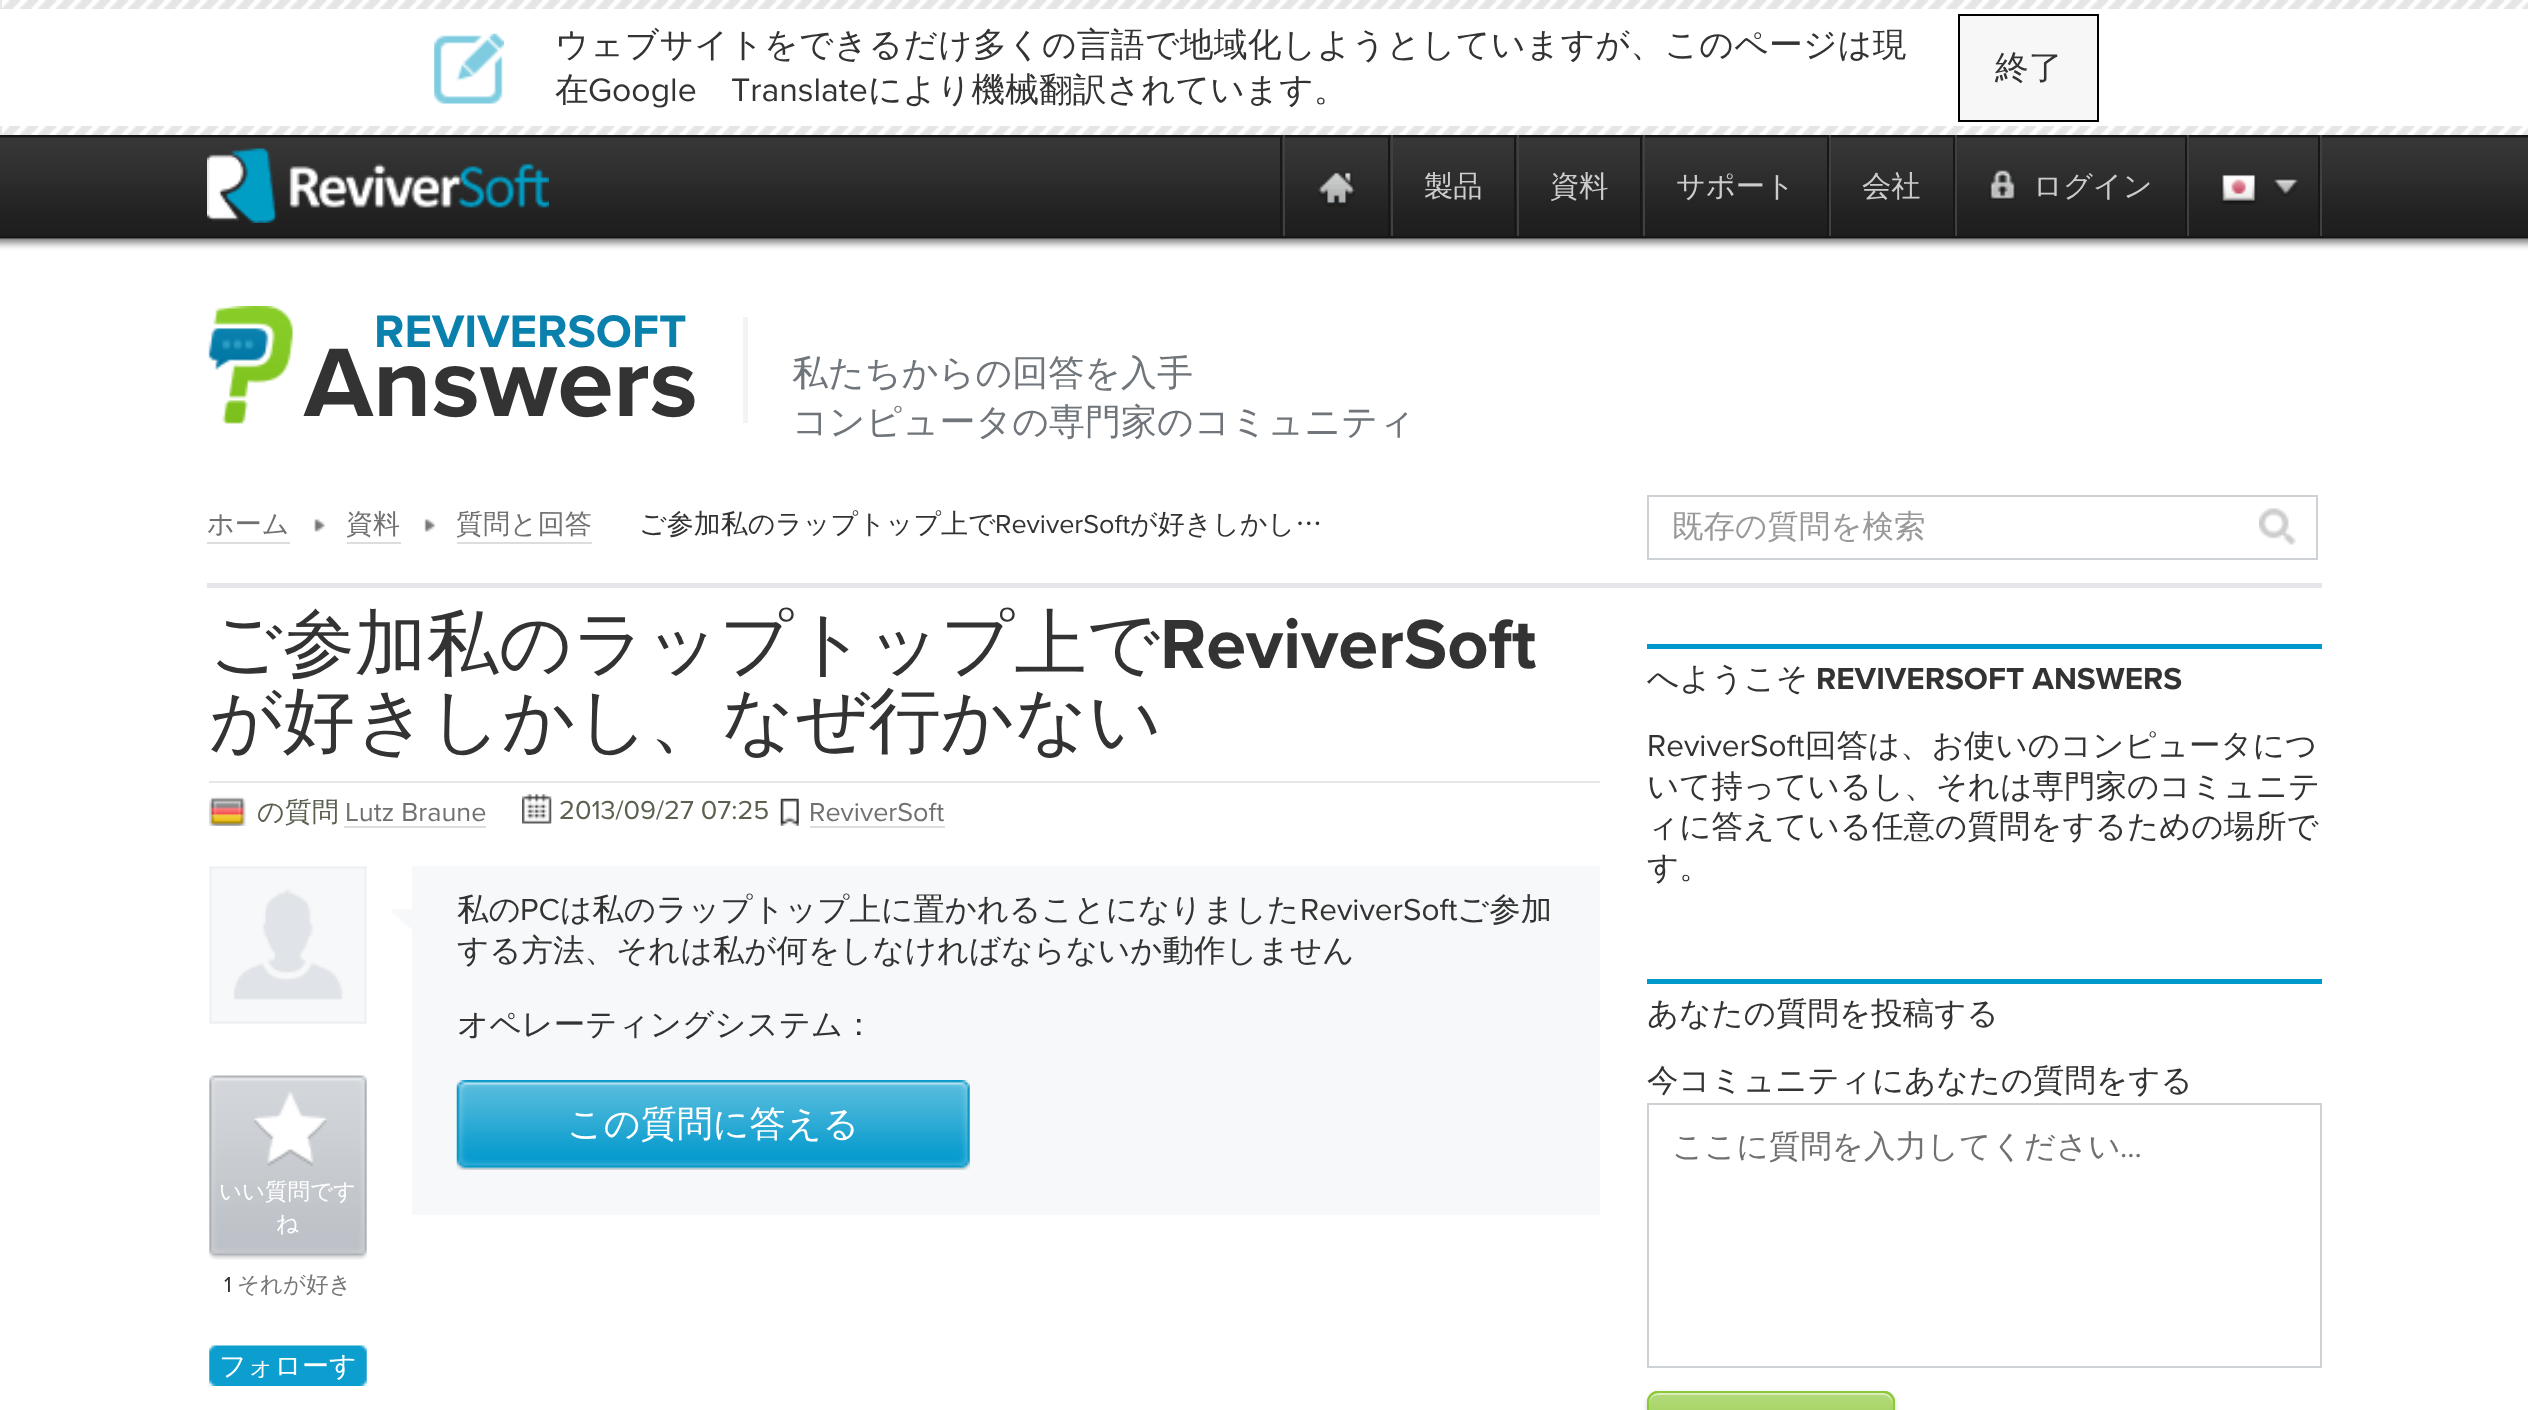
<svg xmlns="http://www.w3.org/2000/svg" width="2528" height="1410">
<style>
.a{font:500 33.75px WenQuanYi Zen Hei;letter-spacing:0.3px;fill:#333}
.b{font:500 33.75px WenQuanYi Zen Hei;fill:#333}
.c{font:33.75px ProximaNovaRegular;fill:#333}
.d{font:500 29.25px WenQuanYi Zen Hei;fill:#ccc}
.e{font:47.25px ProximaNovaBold;fill:#0a80ad}
.f{font:101px ProximaNovaBold;fill:#333}
.g{font:500 36px WenQuanYi Zen Hei;fill:#6f757a}
.h{font:500 27px WenQuanYi Zen Hei;fill:#717171}
.i{font:500 27px WenQuanYi Zen Hei;fill:#333}
.j{font:27px ProximaNovaRegular;fill:#333}
.k{font:500 31.5px WenQuanYi Zen Hei;fill:#999}
.l{font:500 72px WenQuanYi Zen Hei;fill:#333}
.m{font:72px ProximaNovaBold;fill:#333}
.n{font:500 27px WenQuanYi Zen Hei;fill:#5a614f}
.o{font:27px ProximaNovaRegular;fill:#717171}
.p{font:27px ProximaNovaRegular;fill:#5a614f}
.q{font:500 31.5px WenQuanYi Zen Hei;fill:#333}
.r{font:31.5px ProximaNovaRegular;fill:#333}
.s{font:500 36px WenQuanYi Zen Hei;fill:#fff}
.t{font:500 22.5px WenQuanYi Zen Hei;fill:#fff}
.u{font:22.5px ProximaNovaRegular;fill:#333}
.v{font:500 22.5px WenQuanYi Zen Hei;fill:#777}
.w{font:500 27px WenQuanYi Zen Hei;fill:#fff}
.x{font:31.5px ProximaNovaBold;fill:#333}
.y{font:500 31.5px WenQuanYi Zen Hei;fill:#717171}
.z{font:31.5px ProximaNovaRegular;fill:#717171}
</style>
<defs>
<clipPath id="clip1"><rect x="1647" y="1391" width="248" height="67" rx="11"/></clipPath>
<linearGradient id="g1" gradientUnits="userSpaceOnUse" x1="1771" y1="1393" x2="1771" y2="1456"><stop offset="0" stop-color="#fff" stop-opacity="0.34"/><stop offset="1" stop-color="#fff" stop-opacity="0"/></linearGradient>
</defs>
<rect width="100%" height="100%" fill="#fff"/>
<image href="1.png" x="0" y="135" width="2528" height="115"/>
<image href="2.png" x="2" y="0" width="2526" height="9"/>
<path fill="#e7e7e7" d="M0 0h2v9H0z"/>
<image href="3.png" x="434" y="33" width="70" height="71"/>
<path fill="#f7f7f7" stroke="#000" stroke-width="2" d="M1959 15h139v106H1959z"/>
<image href="2.png" x="2" y="126" width="2526" height="9"/>
<path fill="#e7e7e7" d="M0 126h2v9H0z"/>
<image href="4.png" x="207" y="148" width="342" height="75"/>
<path fill="#404040" d="M2320 135h2v101H2320z"/>
<path fill="#171717" d="M1280 135h2v101H1280z"/>
<path fill="#171717" d="M1388 135h2v101H1388z"/>
<path fill="#404040" d="M1283 135h2v101H1283z"/>
<image href="5.png" x="1318" y="171" width="37" height="36"/>
<path fill="#171717" d="M1514 135h2v101H1514z"/>
<path fill="#404040" d="M1391 135h2v101H1391z"/>
<path fill="#171717" d="M1640 135h2v101H1640z"/>
<path fill="#404040" d="M1517 135h2v101H1517z"/>
<path fill="#171717" d="M1827 135h2v101H1827z"/>
<path fill="#404040" d="M1643 135h2v101H1643z"/>
<path fill="#171717" d="M1953 135h2v101H1953z"/>
<path fill="#404040" d="M1829 135h2v101H1829z"/>
<path fill="#171717" d="M2185 135h2v101H2185z"/>
<path fill="#404040" d="M1955 135h2v101H1955z"/>
<image href="6.png" x="1989" y="170" width="27" height="30"/>
<path fill="#171717" d="M2318 135h2v101H2318z"/>
<path fill="#404040" d="M2187 135h2v101H2187z"/>
<image href="7.png" x="2221" y="175" width="36" height="30"/>
<image href="8.png" x="2274" y="178" width="24" height="19"/>
<image href="9.png" x="208" y="306" width="85" height="118"/>
<path fill="#f3f3f3" d="M743 317h5v106H743z"/>
<path fill="#e4e6ea" d="M207 583h2115v5H207z"/>
<path fill="#ddd" d="M207 542h83v2H207z"/>
<image href="10.png" x="314" y="519" width="11" height="13"/>
<path fill="#ddd" d="M347 542h54v2H347z"/>
<image href="11.png" x="424" y="519" width="11" height="13"/>
<path fill="#ddd" d="M457 542h135v2H457z"/>
<path fill="none" stroke="#ced2d7" stroke-width="2" d="M1648 496h669v63H1648z"/>
<image href="12.png" x="2259" y="508" width="37" height="37"/>
<path fill="#e4e6ea" d="M209 781h1391v2H209z"/>
<image href="13.png" x="209" y="796" width="37" height="30"/>
<path fill="#ddd" d="M344 826h142v2H344z"/>
<image href="14.png" x="522" y="794" width="30" height="30"/>
<image href="15.png" x="780" y="798" width="19" height="28"/>
<path fill="#ddd" d="M810 826h135v2H810z"/>
<image href="16.png" x="391" y="909" width="21" height="21"/>
<path fill="#f7f8f9" d="M412 866h1188v349H412z"/>
<image href="17.png" x="456" y="1080" width="514" height="90"/>
<image href="18.png" x="209" y="866" width="158" height="158"/>
<image href="19.png" x="209" y="1075" width="158" height="185"/>
<image href="20.png" x="209" y="1345" width="158" height="41"/>
<path fill="#09c" d="M1647 644h675v5H1647z"/>
<path fill="#09c" d="M1647 979h675v5H1647z"/>
<path fill="none" stroke="#ced2d7" stroke-width="2" d="M1648 1104h673v263H1648z"/>
<rect fill="#00000030" filter="blur(2px)" x="1647" y="1393" width="248" height="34" rx="11"/>
<rect fill="#8cc838" x="1647" y="1391" width="248" height="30" rx="11"/>
<g clip-path="url(#clip1)">
<path fill="url(#g1)" d="M1647 1393h248v17H1647z"/>
</g>
<path fill="#ffffff80" d="M1658 1395h225c5 0 9 4 9 9v-2c0-5-4-9-9-9h-225c-5 0-9 4-9 9v2c0-5 4-9 9-9z"/>
<rect fill="none" stroke="#8cc838" stroke-width="2" x="1648" y="1392" width="246" height="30" rx="10"/>
<text class="a" x="555" y="56">ウェブサイトをできるだけ多くの言語で地域化しようとしていますが、このページは現</text>
<text class="b" x="555" y="101">在</text>
<text class="c" x="588" y="101">Google</text>
<text class="c" x="731" y="101">Translate</text>
<text class="b" x="868" y="101">により機械翻訳されています。</text>
<text class="b" x="1995" y="79">終了</text>
<text class="d" x="1424" y="196">製品</text>
<text class="d" x="1550" y="196">資料</text>
<text class="d" x="1676" y="196">サポート</text>
<text class="d" x="1862" y="196">会社</text>
<text class="d" x="2033" y="196">ログイン</text>
<text class="e" x="374" y="347">REVIVERSOFT</text>
<text class="f" x="304" y="416">Answers</text>
<text class="g" x="792" y="385">私たちからの回答を入手</text>
<text class="g" x="792" y="434">コンピュータの専門家のコミュニティ</text>
<text class="h" x="207" y="533">ホーム</text>
<text class="h" x="346" y="533">資料</text>
<text class="h" x="456" y="533">質問と回答</text>
<text class="i" x="639" y="533">ご参加私のラップトップ上で</text>
<text class="j" x="995" y="533">ReviverSoft</text>
<text class="i" x="1130" y="533">が好きしかし…</text>
<text class="k" x="1672" y="537">既存の質問を検索</text>
<text class="l" x="209" y="668">ご参加私のラップトップ上で</text>
<text class="m" x="1160" y="668">ReviverSoft</text>
<text class="l" x="209" y="745">が好きしかし、なぜ行かない</text>
<text class="n" x="257" y="821">の質問</text>
<text class="o" x="345" y="821">Lutz Braune</text>
<text class="p" x="559" y="819">2013/09/27 07:25</text>
<text class="o" x="809" y="821">ReviverSoft</text>
<text class="q" x="457" y="920">私の</text>
<text class="r" x="520" y="920">PC</text>
<text class="q" x="560" y="920">は私のラップトップ上に置かれることになりました</text>
<text class="r" x="1300" y="920">ReviverSoft</text>
<text class="q" x="1457" y="920">ご参加</text>
<text class="q" x="457" y="961">する方法、それは私が何をしなければならないか動作しません</text>
<text class="q" x="457" y="1035">オペレーティングシステム：</text>
<text class="s" x="567" y="1136">この質問に答える</text>
<text class="t" x="219" y="1199">いい質問です</text>
<text class="t" x="276" y="1231">ね</text>
<text class="u" x="224" y="1292">1</text>
<text class="v" x="237" y="1292">それが好き</text>
<text class="w" x="219" y="1375">フォローす</text>
<text class="q" x="1647" y="689">へようこそ</text>
<text class="x" x="1816" y="689">REVIVERSOFT ANSWERS</text>
<text class="r" x="1647" y="756">ReviverSoft</text>
<text class="q" x="1805" y="756">回答は、お使いのコンピュータにつ</text>
<text class="q" x="1647" y="797">いて持っているし、それは専門家のコミュニテ</text>
<text class="q" x="1647" y="837">ィに答えている任意の質問をするための場所で</text>
<text class="q" x="1647" y="878">す。</text>
<text class="q" x="1647" y="1024">あなたの質問を投稿する</text>
<text class="q" x="1647" y="1091">今コミュニティにあなたの質問をする</text>
<text class="y" x="1672" y="1157">ここに質問を入力してください</text>
<text class="z" x="2120" y="1157">...</text>
</svg>
